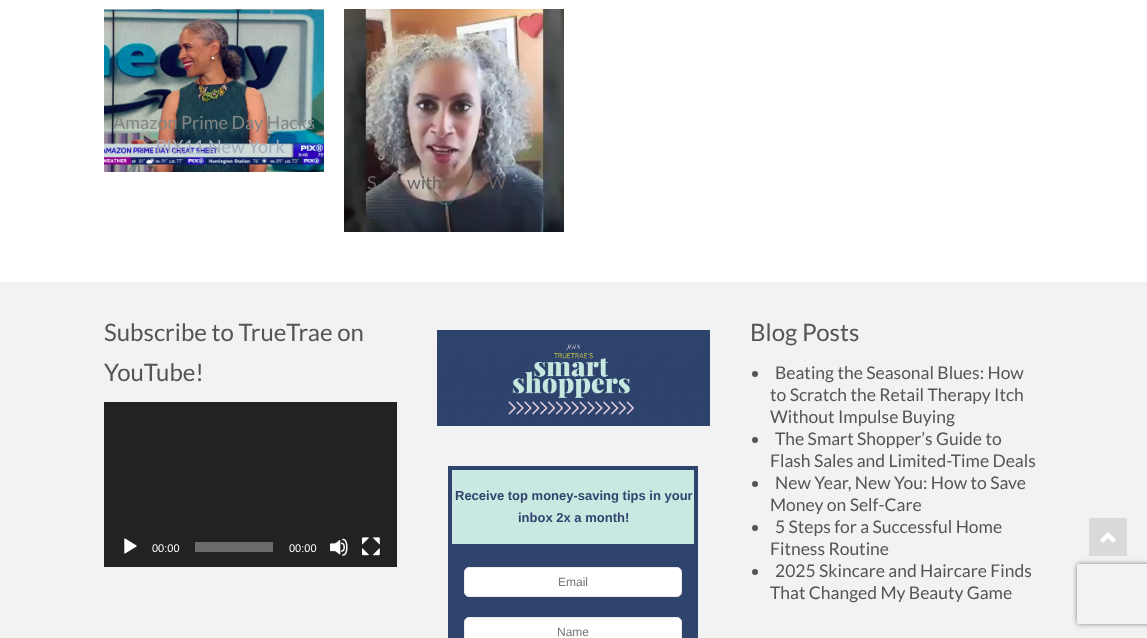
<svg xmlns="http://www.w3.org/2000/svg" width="1147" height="638">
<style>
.a{font:18px Lato;fill:#808683}
.b{font:18px Lato;fill:#a4abb9}
.c{font:18px Lato;fill:#6a6365}
.d{font:24px Lato;fill:#555}
.e{font:11px Liberation Sans;fill:#fff}
.f{font:bold 13px Liberation Sans;fill:#2f446d}
.g{font:12px Liberation Sans;fill:#757575}
.h{font:17.5px Lato;fill:#555}
</style>
<defs>
<clipPath id="clip1"><path d="M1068 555h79v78h-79zm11 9h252c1 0 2 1 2 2v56c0 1-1 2-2 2h-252c-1 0-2-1-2-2v-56c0-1 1-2 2-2z" clip-rule="evenodd"/></clipPath>
</defs>
<rect width="100%" height="100%" fill="#fff"/>
<image href="1.png" x="104" y="9" width="220" height="163"/>
<image href="2.png" x="344" y="9" width="220" height="223"/>
<path fill="#f2f2f2" d="M0 282h1147v356H0z"/>
<path fill="#222" d="M104 402h293v165H104z"/>
<image href="3.png" x="124" y="538" width="13" height="16"/>
<path fill="#6b6b6b" d="M195 542h78v10H195z"/>
<image href="4.png" x="330" y="538" width="18" height="18"/>
<image href="5.png" x="362" y="537" width="18" height="19"/>
<image href="6.png" x="437" y="330" width="273" height="96"/>
<path fill="#2f446d" d="M448 466h250v172H448z"/>
<path fill="#c9e8e1" d="M452 470h242v74H452z"/>
<rect fill="#fff" stroke="#ebebeb" x="464.5" y="567.5" width="217" height="29" rx="4.5"/>
<rect fill="#fff" stroke="#ebebeb" x="464.5" y="617.5" width="217" height="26" rx="4.5"/>
<circle fill="#555" cx="755" cy="374" r="3"/>
<circle fill="#555" cx="755" cy="440" r="3"/>
<circle fill="#555" cx="755" cy="484" r="3"/>
<circle fill="#555" cx="755" cy="528" r="3"/>
<circle fill="#555" cx="755" cy="572" r="3"/>
<g clip-path="url(#clip1)">
<rect fill="#808080" filter="blur(2.5px)" x="1077" y="564" width="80" height="60" rx="2"/>
</g>
<path fill="#dadada" d="M1089 518h38v38H1089z"/>
<image href="7.png" x="1100" y="532" width="16" height="11"/>
<text class="a" x="113" y="129">Amazon Prime Day Hacks</text>
<text class="b" x="142" y="153">– PIX11 New York</text>
<text class="c" x="367" y="189">S</text>
<text class="c" x="407" y="189">with</text>
<text class="c" x="488" y="189">W</text>
<text class="d" x="104" y="341">Subscribe to TrueTrae on</text>
<text class="d" x="104" y="381">YouTube!</text>
<text class="e" x="152" y="552">00:00</text>
<text class="e" x="289" y="552">00:00</text>
<text class="f" x="455" y="500">Receive top money-saving tips in your</text>
<text class="f" x="518" y="522">inbox 2x a month!</text>
<text class="g" x="558" y="586">Email</text>
<text class="g" x="557" y="636">Name</text>
<text class="d" x="750" y="341">Blog Posts</text>
<text class="h" x="775" y="379">Beating the Seasonal Blues: How</text>
<text class="h" x="770" y="401">to Scratch the Retail Therapy Itch</text>
<text class="h" x="770" y="423">Without Impulse Buying</text>
<text class="h" x="775" y="445">The Smart Shopper’s Guide to</text>
<text class="h" x="770" y="467">Flash Sales and Limited-Time Deals</text>
<text class="h" x="775" y="489">New Year, New You: How to Save</text>
<text class="h" x="770" y="511">Money on Self-Care</text>
<text class="h" x="775" y="533">5 Steps for a Successful Home</text>
<text class="h" x="770" y="555">Fitness Routine</text>
<text class="h" x="775" y="577">2025 Skincare and Haircare Finds</text>
<text class="h" x="770" y="599">That Changed My Beauty Game</text>
</svg>
